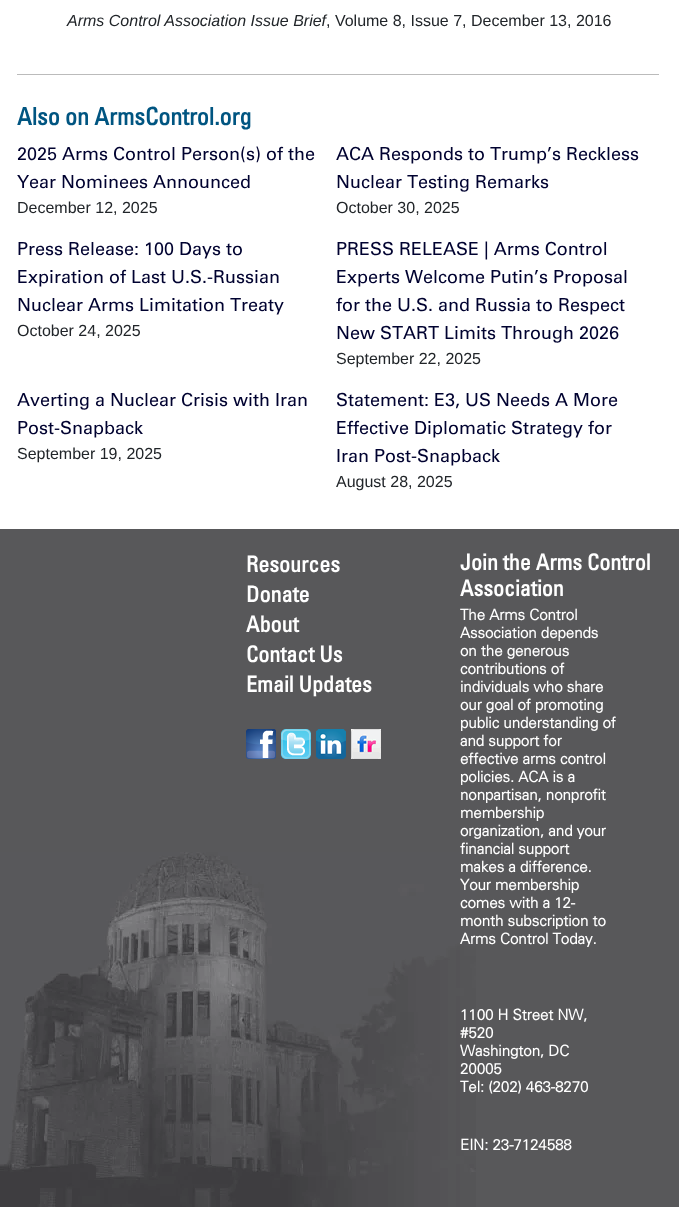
<svg xmlns="http://www.w3.org/2000/svg" width="679" height="1207">
<style>
.a{font:italic 16px Liberation Sans;fill:#212529}
.b{font:16px Liberation Sans;fill:#212529}
.c{font:bold 24px Univers;fill:#005581}
.d{font:18px Univers;fill:#000230}
.e{font:bold 22px Univers;fill:#fff}
.f{font:bold 15px 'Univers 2';fill:#fff}
</style>
<rect width="100%" height="100%" fill="#fff"/>
<path fill="#bbb" d="M17 74h642v1H17z"/>
<path fill="#58585a" d="M0 529h679v678H0z"/>
<image href="1.png" x="0" y="852" width="476" height="355"/>
<image href="2.png" x="246" y="729" width="30" height="30"/>
<image href="3.png" x="281" y="729" width="30" height="30"/>
<image href="4.png" x="316" y="729" width="30" height="30"/>
<image href="5.png" x="351" y="729" width="30" height="30"/>
<text class="a" x="67" y="26">Arms Control Association Issue Brief</text>
<text class="b" x="326" y="26">, Volume 8, Issue 7, December 13, 2016</text>
<text class="c" x="17" y="125">Also on ArmsControl.org</text>
<text class="d" x="17" y="160">2025 Arms Control Person(s) of the</text>
<text class="d" x="17" y="188">Year Nominees Announced</text>
<text class="b" x="17" y="213">December 12, 2025</text>
<text class="d" x="336" y="160">ACA Responds to Trump’s Reckless</text>
<text class="d" x="336" y="188">Nuclear Testing Remarks</text>
<text class="b" x="336" y="213">October 30, 2025</text>
<text class="d" x="17" y="255">Press Release: 100 Days to</text>
<text class="d" x="17" y="283">Expiration of Last U.S.-Russian</text>
<text class="d" x="17" y="311">Nuclear Arms Limitation Treaty</text>
<text class="b" x="17" y="336">October 24, 2025</text>
<text class="d" x="336" y="255">PRESS RELEASE | Arms Control</text>
<text class="d" x="336" y="283">Experts Welcome Putin’s Proposal</text>
<text class="d" x="336" y="311">for the U.S. and Russia to Respect</text>
<text class="d" x="336" y="339">New START Limits Through 2026</text>
<text class="b" x="336" y="364">September 22, 2025</text>
<text class="d" x="17" y="406">Averting a Nuclear Crisis with Iran</text>
<text class="d" x="17" y="434">Post-Snapback</text>
<text class="b" x="17" y="459">September 19, 2025</text>
<text class="d" x="336" y="406">Statement: E3, US Needs A More</text>
<text class="d" x="336" y="434">Effective Diplomatic Strategy for</text>
<text class="d" x="336" y="462">Iran Post-Snapback</text>
<text class="b" x="336" y="487">August 28, 2025</text>
<text class="e" x="246" y="572">Resources</text>
<text class="e" x="246" y="602">Donate</text>
<text class="e" x="246" y="632">About</text>
<text class="e" x="246" y="662">Contact Us</text>
<text class="e" x="246" y="692">Email Updates</text>
<text class="e" x="460" y="570">Join the Arms Control</text>
<text class="e" x="460" y="596">Association</text>
<text class="f" x="460" y="620">The Arms Control</text>
<text class="f" x="460" y="638">Association depends</text>
<text class="f" x="460" y="656">on the generous</text>
<text class="f" x="460" y="674">contributions of</text>
<text class="f" x="460" y="692">individuals who share</text>
<text class="f" x="460" y="710">our goal of promoting</text>
<text class="f" x="460" y="728">public understanding of</text>
<text class="f" x="460" y="746">and support for</text>
<text class="f" x="460" y="764">effective arms control</text>
<text class="f" x="460" y="782">policies. ACA is a</text>
<text class="f" x="460" y="800">nonpartisan, nonprofit</text>
<text class="f" x="460" y="818">membership</text>
<text class="f" x="460" y="836">organization, and your</text>
<text class="f" x="460" y="854">financial support</text>
<text class="f" x="460" y="872">makes a difference.</text>
<text class="f" x="460" y="890">Your membership</text>
<text class="f" x="460" y="908">comes with a 12-</text>
<text class="f" x="460" y="926">month subscription to</text>
<text class="f" x="460" y="944">Arms Control Today.</text>
<text class="f" x="460" y="1020">1100 H Street NW,</text>
<text class="f" x="460" y="1038">#520</text>
<text class="f" x="460" y="1056">Washington, DC</text>
<text class="f" x="460" y="1074">20005</text>
<text class="f" x="460" y="1092">Tel: (202) 463-8270</text>
<text class="f" x="460" y="1150">EIN: 23-7124588</text>
</svg>
